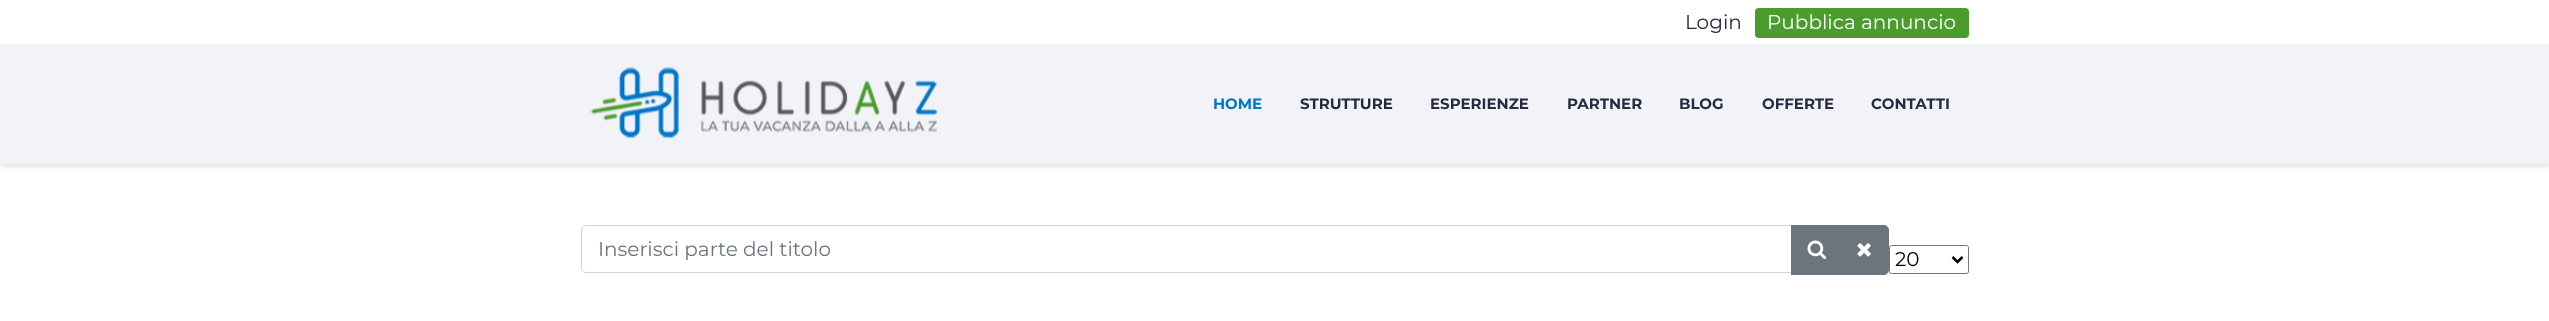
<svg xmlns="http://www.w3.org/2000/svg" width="2549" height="321">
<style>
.a{font:20px Montserrat;fill:#282b40}
.b{font:20px Montserrat;fill:#fff}
.c{font:bold 15px Montserrat;fill:#0075c9}
.d{font:bold 15px Montserrat;fill:#282b40}
.e{font:20px Montserrat;fill:#6c757d}
.f{font:20px Montserrat;fill:#000}
</style>
<rect width="100%" height="100%" fill="#fff"/>
<path fill="#ccc" filter="blur(5px)" d="M0 44h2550v120H0z"/>
<path fill="#fff" d="M0 36h2549v8H0z"/>
<rect fill="#4a9c2d" x="1755" y="8" width="214" height="30" rx="4"/>
<path fill="#f1f3f7" d="M0 44h2549v120H0z"/>
<image href="1.png" x="589" y="67" width="348" height="72"/>
<path fill="none" stroke="#ced4da" d="M586 225.5h1206.5v47h-1206.5c-2.5 0-4.5-2-4.5-4.5v-38c0-2.5 2-4.5 4.5-4.5z"/>
<path fill="#6c757d" d="M1791 225h49v50H1791z"/>
<image href="2.png" x="1807" y="240" width="20" height="20"/>
<path fill="#6c757d" stroke="#6c757d" d="M1840.5 225.5h43.5c2.5 0 4.5 2 4.5 4.5v40c0 2.5-2 4.5-4.5 4.5h-43.5z"/>
<image href="3.png" x="1857" y="243" width="14" height="14"/>
<rect fill="none" stroke="#767676" x="1889.5" y="245.5" width="79" height="28" rx="2"/>
<path fill="none" stroke="#000" stroke-width="2.5" d="M1952.5 257l5 5l5-5"/>
<text class="a" x="1685" y="29">Login</text>
<text class="b" x="1767" y="29">Pubblica annuncio</text>
<text class="c" x="1213" y="109">HOME</text>
<text class="d" x="1300" y="109">STRUTTURE</text>
<text class="d" x="1430" y="109">ESPERIENZE</text>
<text class="d" x="1567" y="109">PARTNER</text>
<text class="d" x="1679" y="109">BLOG</text>
<text class="d" x="1762" y="109">OFFERTE</text>
<text class="d" x="1871" y="109">CONTATTI</text>
<text class="e" x="598" y="256">Inserisci parte del titolo</text>
<text class="f" x="1895" y="266">20</text>
</svg>
